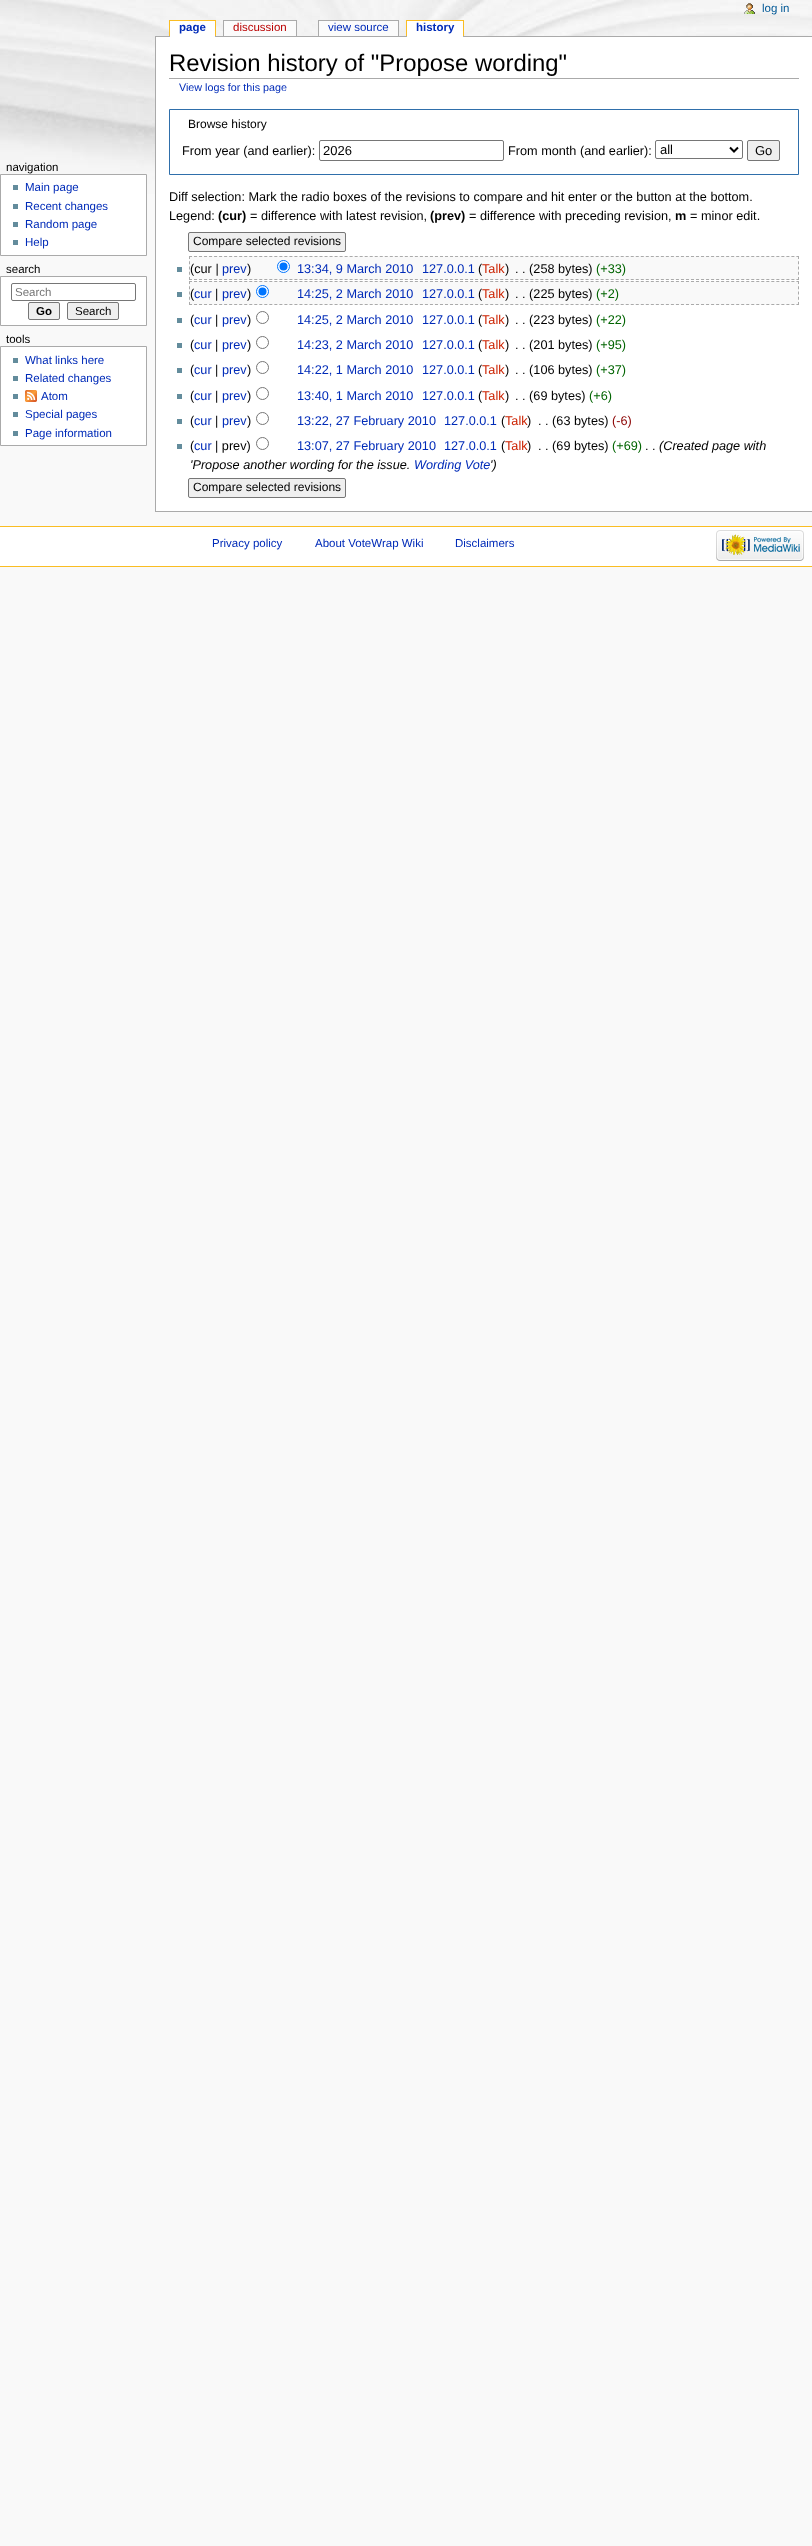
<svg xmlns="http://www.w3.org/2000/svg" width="812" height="2546">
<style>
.a{font:11.5px Liberation Sans;fill:#005896}
.b{font:bold 11.5px Liberation Sans;fill:#002bb8}
.c{font:11.5px Liberation Sans;fill:#ba0000}
.d{font:11.5px Liberation Sans;fill:#002bb8}
.e{font:11.5px Liberation Sans;fill:#000}
.f{font:11.5px Liberation Sans;fill:#757575}
.g{font:bold 11.5px Liberation Sans;fill:#000}
.h{font:23.9px Liberation Sans;fill:#000}
.i{font:10.75px Liberation Sans;fill:#002bb8}
.j{font:12px Liberation Sans;fill:#000}
.k{font:12.7px Liberation Sans;fill:#000}
.l{font:13px Liberation Sans;fill:#000}
.m{font:bold 12.7px Liberation Sans;fill:#000}
.n{font:12.7px Liberation Sans;fill:#002bb8}
.o{font:12.7px Liberation Sans;fill:#c20}
.p{font:12.7px Liberation Sans;fill:#006400}
.q{font:12.7px Liberation Sans;fill:#8b0000}
.r{font:italic 12.7px Liberation Sans;fill:#000}
.s{font:italic 12.7px Liberation Sans;fill:#002bb8}
</style>
<rect width="100%" height="100%" fill="#f9f9f9"/>
<image href="1.png" x="0" y="0" width="812" height="194"/>
<image href="2.png" x="744" y="3" width="11" height="11"/>
<path fill="#fabd23" d="M169 20h47v1H169z"/>
<path fill="#fabd23" d="M215 20h1v16H215z"/>
<path fill="#fabd23" d="M169 20h1v16H169z"/>
<path fill="#aaa" d="M155 36h657v1H155z"/>
<path fill="#fff" d="M170 21h45v16H170z"/>
<path fill="#aaa" d="M223 20h74v1H223z"/>
<path fill="#aaa" d="M296 20h1v16H296z"/>
<path fill="#aaa" d="M223 20h1v16H223z"/>
<path fill="#fbfbfb" d="M224 21h72v15H224z"/>
<path fill="#aaa" d="M318 20h81v1H318z"/>
<path fill="#aaa" d="M398 20h1v16H398z"/>
<path fill="#aaa" d="M318 20h1v16H318z"/>
<path fill="#fbfbfb" d="M319 21h79v15H319z"/>
<path fill="#fabd23" d="M406 20h58v1H406z"/>
<path fill="#fabd23" d="M463 20h1v16H463z"/>
<path fill="#fabd23" d="M406 20h1v16H406z"/>
<path fill="#fff" d="M407 21h56v16H407z"/>
<path fill="#fff" stroke="#aaa" d="M0.5 174.5h146v81H0.5z"/>
<path fill="#638c9c" d="M13 185h5v5H13z"/>
<path fill="#638c9c" d="M13 204h5v5H13z"/>
<path fill="#638c9c" d="M13 222h5v5H13z"/>
<path fill="#638c9c" d="M13 240h5v5H13z"/>
<path fill="#fff" stroke="#aaa" d="M0.5 276.5h146v49H0.5z"/>
<rect fill="none" stroke="#767676" x="11.5" y="283.5" width="124" height="17" rx="1.5"/>
<rect fill="#efefef" stroke="#767676" x="28.5" y="302.5" width="31" height="17" rx="1.5"/>
<rect fill="#efefef" stroke="#767676" x="67.5" y="302.5" width="51" height="17" rx="1.5"/>
<path fill="#fff" stroke="#aaa" d="M0.5 346.5h146v99H0.5z"/>
<path fill="#638c9c" d="M13 358h5v5H13z"/>
<path fill="#638c9c" d="M13 376h5v5H13z"/>
<path fill="#638c9c" d="M13 394h5v5H13z"/>
<image href="3.png" x="25" y="390" width="12" height="12"/>
<path fill="#638c9c" d="M13 412h5v5H13z"/>
<path fill="#638c9c" d="M13 431h5v5H13z"/>
<path fill="#fff" d="M156 37h656v474H156z"/>
<path fill="#aaa" d="M155 511h657v1H155z"/>
<path fill="#aaa" d="M155 36h1v476H155z"/>
<path fill="#aaa" d="M169 78h630v1H169z"/>
<path fill="none" stroke="#2f6fab" d="M169.5 109.5h629v65H169.5z"/>
<rect fill="none" stroke="#767676" x="319.5" y="140.5" width="184" height="20" rx="1.5"/>
<rect fill="none" stroke="#767676" x="655.5" y="140.5" width="87" height="18" rx="1.5"/>
<path fill="none" stroke="#000" stroke-width="2" d="M730 147.5l4 4l4-4"/>
<rect fill="#efefef" stroke="#767676" x="747.5" y="140.5" width="32" height="20" rx="1.5"/>
<rect fill="#efefef" stroke="#767676" x="188.5" y="232.5" width="157" height="19" rx="1.5"/>
<path fill="#f9f9f9" d="M189 256h610v24H189z"/>
<path fill="none" stroke="#aaa" stroke-dasharray="3 2.02" d="M189 256.5h610"/>
<path fill="none" stroke="#aaa" stroke-dasharray="3 2.25" d="M798.5 256v24"/>
<path fill="none" stroke="#aaa" stroke-dasharray="3 2.02" d="M189 279.5h610"/>
<path fill="none" stroke="#aaa" stroke-dasharray="3 2.25" d="M189.5 256v24"/>
<path fill="#638c9c" d="M177 267h5v5H177z"/>
<circle fill="#fff" stroke="#0075ff" cx="283.5" cy="266.5" r="6"/>
<circle fill="#0075ff" cx="283.5" cy="266.5" r="4"/>
<path fill="#f9f9f9" d="M189 281h610v24H189z"/>
<path fill="none" stroke="#aaa" stroke-dasharray="3 2.02" d="M189 281.5h610"/>
<path fill="none" stroke="#aaa" stroke-dasharray="3 2.25" d="M798.5 281v24"/>
<path fill="none" stroke="#aaa" stroke-dasharray="3 2.02" d="M189 304.5h610"/>
<path fill="none" stroke="#aaa" stroke-dasharray="3 2.25" d="M189.5 281v24"/>
<path fill="#638c9c" d="M177 292h5v5H177z"/>
<circle fill="#fff" stroke="#0075ff" cx="262.5" cy="291.5" r="6"/>
<circle fill="#0075ff" cx="262.5" cy="291.5" r="4"/>
<path fill="#638c9c" d="M177 318h5v5H177z"/>
<circle fill="none" stroke="#767676" cx="262.5" cy="317.5" r="6"/>
<path fill="#638c9c" d="M177 343h5v5H177z"/>
<circle fill="none" stroke="#767676" cx="262.5" cy="342.5" r="6"/>
<path fill="#638c9c" d="M177 368h5v5H177z"/>
<circle fill="none" stroke="#767676" cx="262.5" cy="367.5" r="6"/>
<path fill="#638c9c" d="M177 394h5v5H177z"/>
<circle fill="none" stroke="#767676" cx="262.5" cy="393.5" r="6"/>
<path fill="#638c9c" d="M177 419h5v5H177z"/>
<circle fill="none" stroke="#767676" cx="262.5" cy="418.5" r="6"/>
<path fill="#638c9c" d="M177 444h5v5H177z"/>
<circle fill="none" stroke="#767676" cx="262.5" cy="443.5" r="6"/>
<rect fill="#efefef" stroke="#767676" x="188.5" y="478.5" width="157" height="19" rx="1.5"/>
<path fill="#fff" d="M0 527h812v39H0z"/>
<path fill="#fabd23" d="M0 526h812v1H0z"/>
<path fill="#fabd23" d="M0 566h812v1H0z"/>
<image href="4.png" x="716" y="530" width="88" height="31"/>
<text class="a" x="762" y="12">log in</text>
<text class="b" x="179" y="31">page</text>
<text class="c" x="233" y="31">discussion</text>
<text class="d" x="328" y="31">view source</text>
<text class="b" x="416" y="31">history</text>
<text class="e" x="6" y="171">navigation</text>
<text class="d" x="25" y="191">Main page</text>
<text class="d" x="25" y="210">Recent changes</text>
<text class="d" x="25" y="228">Random page</text>
<text class="d" x="25" y="246">Help</text>
<text class="e" x="6" y="273">search</text>
<text class="f" x="15" y="296">Search</text>
<text class="g" x="36" y="315">Go</text>
<text class="e" x="75" y="315">Search</text>
<text class="e" x="6" y="343">tools</text>
<text class="d" x="25" y="364">What links here</text>
<text class="d" x="25" y="382">Related changes</text>
<text class="d" x="41" y="400">Atom</text>
<text class="d" x="25" y="418">Special pages</text>
<text class="d" x="25" y="437">Page information</text>
<text class="h" x="169" y="71">Revision history of "Propose wording"</text>
<text class="i" x="179" y="91">View logs for this page</text>
<text class="j" x="188" y="128">Browse history</text>
<text class="k" x="182" y="155">From year (and earlier):</text>
<text class="l" x="323" y="155">2026</text>
<text class="k" x="508" y="155">From month (and earlier):</text>
<text class="l" x="660" y="154">all</text>
<text class="l" x="755" y="155">Go</text>
<text class="k" x="169" y="201">Diff selection: Mark the radio boxes of the revisions to compare and hit enter or the button at the bottom.</text>
<text class="k" x="169" y="220">Legend:</text>
<text class="m" x="218" y="220">(cur)</text>
<text class="k" x="250" y="220">= difference with latest revision,</text>
<text class="m" x="430" y="220">(prev)</text>
<text class="k" x="469" y="220">= difference with preceding revision,</text>
<text class="m" x="675" y="220">m</text>
<text class="k" x="690" y="220">= minor edit.</text>
<text class="j" x="193" y="245">Compare selected revisions</text>
<text class="k" x="190" y="273">(cur |</text>
<text class="n" x="222" y="273">prev</text>
<text class="k" x="247" y="273">)</text>
<text class="n" x="297" y="273">13:34, 9 March 2010</text>
<text class="n" x="422" y="273">127.0.0.1</text>
<text class="k" x="478" y="273">(</text>
<text class="o" x="482" y="273">Talk</text>
<text class="k" x="505" y="273">)</text>
<text class="k" x="515" y="273">. . (258 bytes)</text>
<text class="p" x="596" y="273">(+33)</text>
<text class="k" x="190" y="298">(</text>
<text class="n" x="194" y="298">cur</text>
<text class="k" x="215" y="298">|</text>
<text class="n" x="222" y="298">prev</text>
<text class="k" x="247" y="298">)</text>
<text class="n" x="297" y="298">14:25, 2 March 2010</text>
<text class="n" x="422" y="298">127.0.0.1</text>
<text class="k" x="478" y="298">(</text>
<text class="o" x="482" y="298">Talk</text>
<text class="k" x="505" y="298">)</text>
<text class="k" x="515" y="298">. . (225 bytes)</text>
<text class="p" x="596" y="298">(+2)</text>
<text class="k" x="190" y="324">(</text>
<text class="n" x="194" y="324">cur</text>
<text class="k" x="215" y="324">|</text>
<text class="n" x="222" y="324">prev</text>
<text class="k" x="247" y="324">)</text>
<text class="n" x="297" y="324">14:25, 2 March 2010</text>
<text class="n" x="422" y="324">127.0.0.1</text>
<text class="k" x="478" y="324">(</text>
<text class="o" x="482" y="324">Talk</text>
<text class="k" x="505" y="324">)</text>
<text class="k" x="515" y="324">. . (223 bytes)</text>
<text class="p" x="596" y="324">(+22)</text>
<text class="k" x="190" y="349">(</text>
<text class="n" x="194" y="349">cur</text>
<text class="k" x="215" y="349">|</text>
<text class="n" x="222" y="349">prev</text>
<text class="k" x="247" y="349">)</text>
<text class="n" x="297" y="349">14:23, 2 March 2010</text>
<text class="n" x="422" y="349">127.0.0.1</text>
<text class="k" x="478" y="349">(</text>
<text class="o" x="482" y="349">Talk</text>
<text class="k" x="505" y="349">)</text>
<text class="k" x="515" y="349">. . (201 bytes)</text>
<text class="p" x="596" y="349">(+95)</text>
<text class="k" x="190" y="374">(</text>
<text class="n" x="194" y="374">cur</text>
<text class="k" x="215" y="374">|</text>
<text class="n" x="222" y="374">prev</text>
<text class="k" x="247" y="374">)</text>
<text class="n" x="297" y="374">14:22, 1 March 2010</text>
<text class="n" x="422" y="374">127.0.0.1</text>
<text class="k" x="478" y="374">(</text>
<text class="o" x="482" y="374">Talk</text>
<text class="k" x="505" y="374">)</text>
<text class="k" x="515" y="374">. . (106 bytes)</text>
<text class="p" x="596" y="374">(+37)</text>
<text class="k" x="190" y="400">(</text>
<text class="n" x="194" y="400">cur</text>
<text class="k" x="215" y="400">|</text>
<text class="n" x="222" y="400">prev</text>
<text class="k" x="247" y="400">)</text>
<text class="n" x="297" y="400">13:40, 1 March 2010</text>
<text class="n" x="422" y="400">127.0.0.1</text>
<text class="k" x="478" y="400">(</text>
<text class="o" x="482" y="400">Talk</text>
<text class="k" x="505" y="400">)</text>
<text class="k" x="515" y="400">. . (69 bytes)</text>
<text class="p" x="589" y="400">(+6)</text>
<text class="k" x="190" y="425">(</text>
<text class="n" x="194" y="425">cur</text>
<text class="k" x="215" y="425">|</text>
<text class="n" x="222" y="425">prev</text>
<text class="k" x="247" y="425">)</text>
<text class="n" x="297" y="425">13:22, 27 February 2010</text>
<text class="n" x="444" y="425">127.0.0.1</text>
<text class="k" x="501" y="425">(</text>
<text class="o" x="505" y="425">Talk</text>
<text class="k" x="527" y="425">)</text>
<text class="k" x="538" y="425">. . (63 bytes)</text>
<text class="q" x="612" y="425">(-6)</text>
<text class="k" x="190" y="450">(</text>
<text class="n" x="194" y="450">cur</text>
<text class="k" x="215" y="450">| prev)</text>
<text class="n" x="297" y="450">13:07, 27 February 2010</text>
<text class="n" x="444" y="450">127.0.0.1</text>
<text class="k" x="501" y="450">(</text>
<text class="o" x="505" y="450">Talk</text>
<text class="k" x="527" y="450">)</text>
<text class="k" x="538" y="450">. . (69 bytes)</text>
<text class="p" x="612" y="450">(+69)</text>
<text class="k" x="645" y="450">. .</text>
<text class="r" x="659" y="450">(Created page with</text>
<text class="r" x="190" y="469">'Propose another wording for the issue.</text>
<text class="s" x="414" y="469">Wording Vote</text>
<text class="r" x="490" y="469">')</text>
<text class="j" x="193" y="491">Compare selected revisions</text>
<text class="d" x="212" y="547">Privacy policy</text>
<text class="d" x="315" y="547">About VoteWrap Wiki</text>
<text class="d" x="455" y="547">Disclaimers</text>
</svg>
